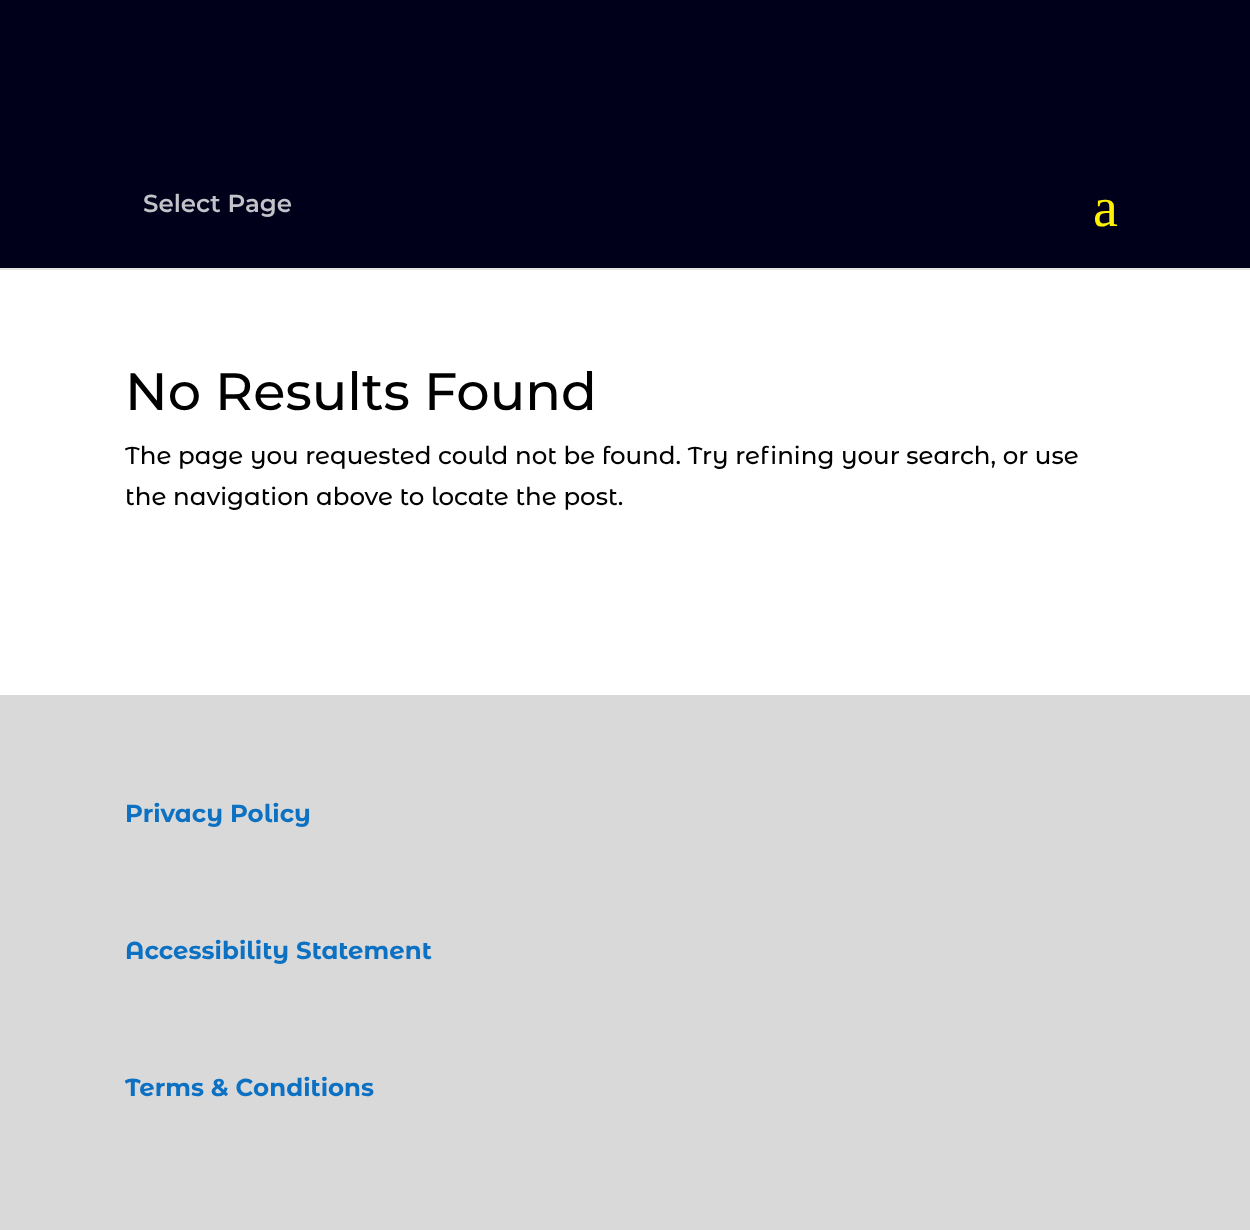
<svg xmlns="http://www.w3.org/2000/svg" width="1250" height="1230">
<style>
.a{font:100 24.5px 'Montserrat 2';fill:#c2c2c8}
.b{font:56px Liberation Serif;fill:#fef102}
.c{font:100 52.5px Montserrat;fill:#000}
.d{font:500 24.5px Montserrat Alternates;fill:#000}
.e{font:bold 24.5px Montserrat Alternates;fill:#0c71c3}
</style>
<rect width="100%" height="100%" fill="#fff"/>
<path fill="#e6e6e6" d="M0 268h1250v2H0z"/>
<path fill="#00001b" d="M0 0h1250v268H0z"/>
<path fill="#d9d9d9" d="M0 695h1250v535H0z"/>
<text class="a" x="143" y="212">Select Page</text>
<text class="b" x="1093" y="226">a</text>
<text class="c" x="125" y="410">No Results Found</text>
<text class="d" x="125" y="464">The page you requested could not be found. Try refining your search, or use</text>
<text class="d" x="125" y="505">the navigation above to locate the post.</text>
<text class="e" x="125" y="822">Privacy Policy</text>
<text class="e" x="125" y="959">Accessibility Statement</text>
<text class="e" x="125" y="1096">Terms &amp; Conditions</text>
</svg>
